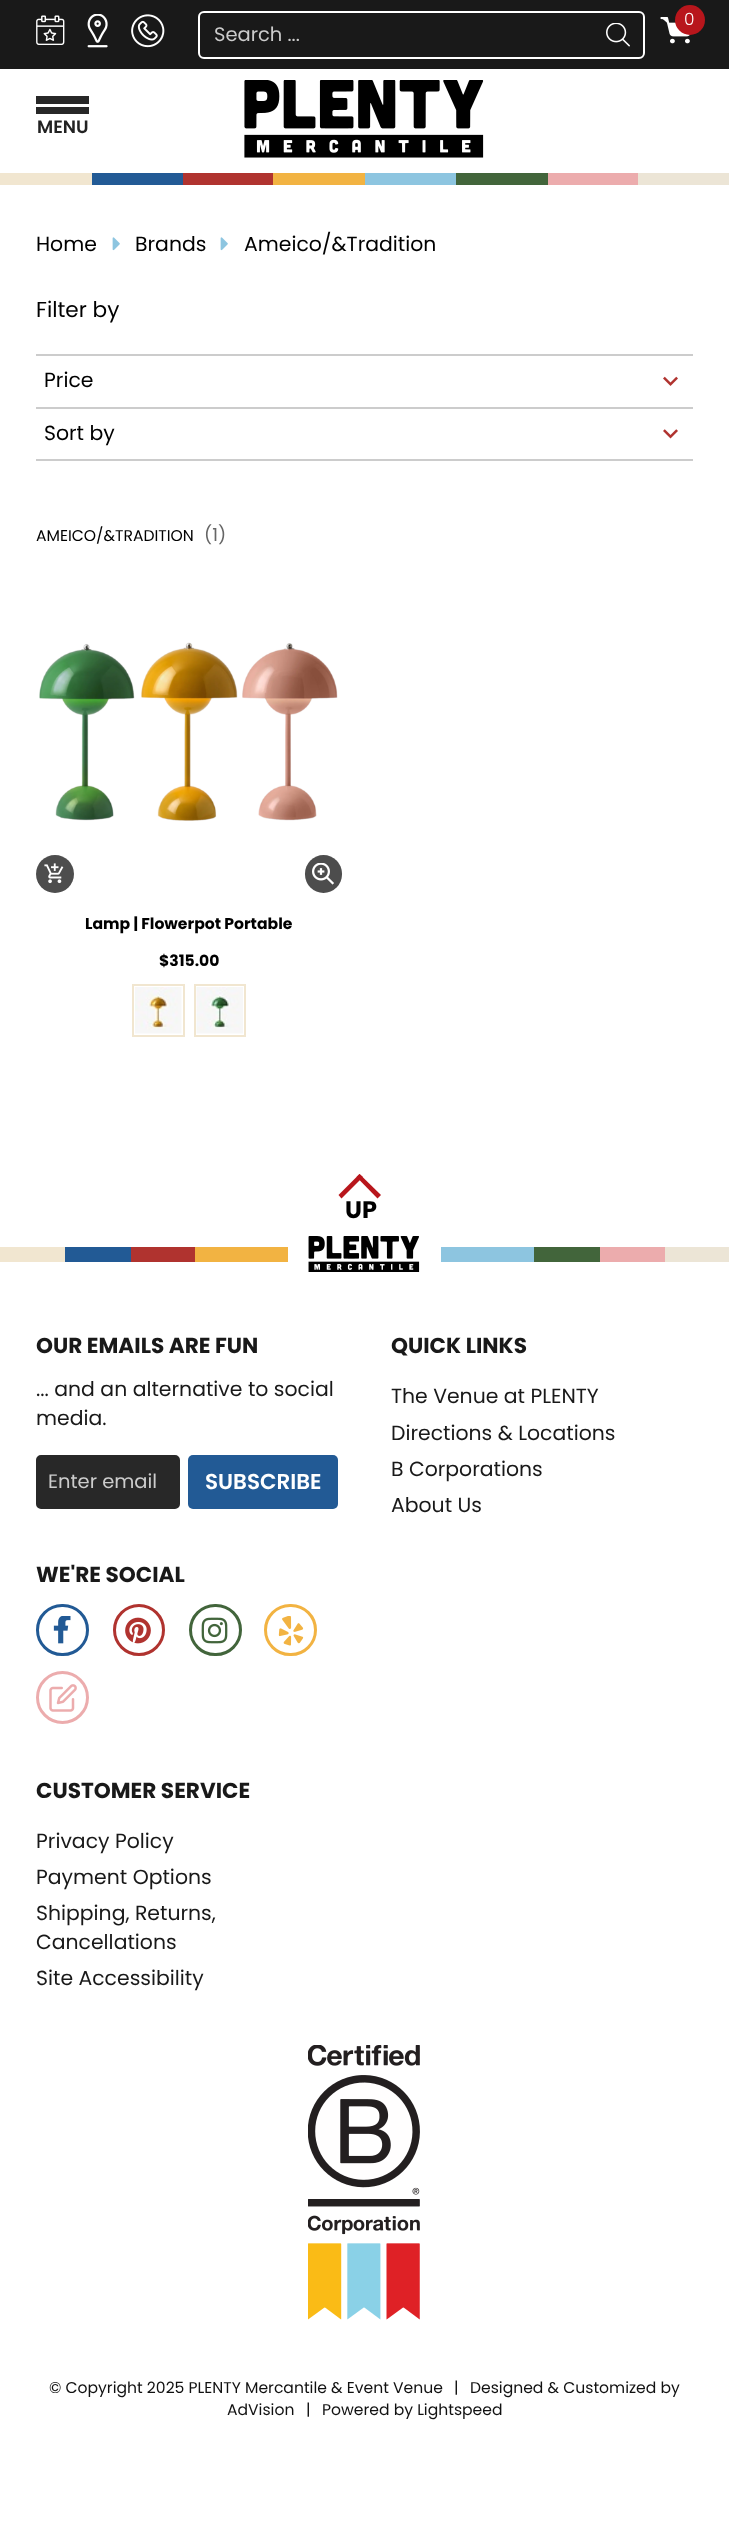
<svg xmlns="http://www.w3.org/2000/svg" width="729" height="2541">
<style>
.a{font:300 17px Poppins;fill:#fff}
.b{font:19.5px Poppins;fill:#ccc}
.c{font:600 18px Poppins;fill:#222}
.d{font:20.4px Poppins;fill:#000}
.e{font:21.6px Poppins;fill:#000}
.f{font:15.6px Poppins;fill:#000}
.g{font:18px Poppins;fill:#666}
.h{font:bold 15.6px Poppins;fill:#000}
.i{font:bold 24px Poppins;fill:#000}
.j{font:bold 21.6px Poppins;fill:#191919}
.k{font:20.4px Poppins;fill:#191919}
.l{font:600 21.5px Poppins;fill:#fff}
.m{font:15.6px Poppins;fill:#111}
</style>
<rect width="100%" height="100%" fill="#fff"/>
<path fill="#191919" d="M0 0h729v69H0z"/>
<image href="1.png" x="36" y="15" width="29" height="30"/>
<image href="2.png" x="87" y="14" width="21" height="34"/>
<image href="3.png" x="131" y="14" width="34" height="34"/>
<image href="4.png" x="660" y="17" width="31" height="27"/>
<circle fill="#b8161c" cx="690" cy="20" r="15"/>
<rect fill="none" stroke="#fff" stroke-width="2" x="199" y="12" width="445" height="46" rx="5"/>
<image href="5.png" x="606" y="23" width="24" height="24"/>
<path fill="#282828" d="M36 96h53v8H36z"/>
<path fill="#282828" d="M36 107h53v7H36z"/>
<image href="6.png" x="244" y="80" width="240" height="78"/>
<path fill="#f1e6d0" d="M0 173h92v12H0z"/>
<path fill="#225a95" d="M92 173h91v12H92z"/>
<path fill="#b0332f" d="M183 173h90v12H183z"/>
<path fill="#f2b342" d="M273 173h92v12H273z"/>
<path fill="#8dc5e0" d="M365 173h91v12H365z"/>
<path fill="#42653b" d="M456 173h92v12H456z"/>
<path fill="#ecacad" d="M548 173h90v12H548z"/>
<path fill="#ece5d6" d="M638 173h91v12H638z"/>
<image href="7.png" x="112" y="237" width="8" height="14"/>
<image href="7.png" x="220" y="237" width="8" height="14"/>
<path fill="#ccc" d="M36 354h657v2H36z"/>
<image href="8.png" x="663" y="376" width="15" height="10"/>
<path fill="#ccc" d="M36 407h657v2H36z"/>
<path fill="#ccc" d="M36 459h657v2H36z"/>
<image href="9.png" x="663" y="429" width="15" height="10"/>
<image href="10.png" x="39" y="642" width="299" height="179"/>
<circle fill="#4d4d4d" cx="55" cy="874" r="19"/>
<image href="11.png" x="44" y="863" width="20" height="21"/>
<rect fill="#4d4d4d" x="305" y="855" width="37" height="38" rx="18.5"/>
<image href="12.png" x="312" y="863" width="22" height="22"/>
<path fill="none" stroke="#f1e6d0" stroke-width="2" d="M133 985h51v51H133z"/>
<image href="13.png" x="135" y="987" width="47" height="47"/>
<path fill="none" stroke="#f1e6d0" stroke-width="2" d="M195 985h50v51H195z"/>
<image href="14.png" x="196" y="987" width="47" height="47"/>
<path fill="#b8161c" d="M341.5 1198.5l-3-3.5l21-21l3.5 3z"/>
<path fill="#b8161c" d="M377.5 1198.5l-21-21.5l3-3l21.5 21z"/>
<image href="15.png" x="308" y="1236" width="112" height="36"/>
<path fill="#f1e6d0" d="M0 1247h65v15H0z"/>
<path fill="#225a95" d="M65 1247h66v15H65z"/>
<path fill="#b0332f" d="M131 1247h64v15H131z"/>
<path fill="#f2b342" d="M195 1247h93v15H195z"/>
<path fill="#8dc5e0" d="M441 1247h93v15H441z"/>
<path fill="#42653b" d="M534 1247h66v15H534z"/>
<path fill="#ecacad" d="M600 1247h65v15H600z"/>
<path fill="#ece5d6" d="M665 1247h64v15H665z"/>
<rect fill="#282828" stroke="#282828" stroke-width="2" x="37" y="1456" width="142" height="52" rx="4"/>
<rect fill="#225a95" x="188" y="1455" width="150" height="54" rx="5"/>
<rect fill="none" stroke="#225a95" stroke-width="3" x="37.5" y="1605.5" width="50" height="49" rx="24.5"/>
<image href="16.png" x="53" y="1616" width="18" height="28"/>
<circle fill="none" stroke="#b0332f" stroke-width="3" cx="139" cy="1630" r="24.5"/>
<image href="17.png" x="125" y="1617" width="26" height="27"/>
<rect fill="none" stroke="#42653b" stroke-width="3" x="190.5" y="1605.5" width="50" height="49" rx="24.5"/>
<image href="18.png" x="201" y="1617" width="27" height="27"/>
<rect fill="none" stroke="#f2b342" stroke-width="3" x="265.5" y="1605.5" width="50" height="49" rx="24.5"/>
<image href="19.png" x="278" y="1616" width="26" height="30"/>
<circle fill="none" stroke="#ecacad" stroke-width="3" cx="62.5" cy="1697.5" r="25"/>
<image href="20.png" x="49" y="1684" width="28" height="28"/>
<image href="21.png" x="308" y="2045" width="112" height="275"/>
<text class="a" x="684" y="25">0</text>
<text class="b" x="214" y="41">Search ...</text>
<text class="c" x="37" y="133">MENU</text>
<text class="d" x="36" y="251">Home</text>
<text class="d" x="135" y="251">Brands</text>
<text class="d" x="244" y="251">Ameico/&amp;Tradition</text>
<text class="e" x="36" y="317">Filter by</text>
<text class="d" x="44" y="387">Price</text>
<text class="d" x="44" y="440">Sort by</text>
<text class="f" x="36" y="541">AMEICO/&amp;TRADITION</text>
<text class="g" x="204" y="541">(1)</text>
<text class="h" x="85" y="929">Lamp | Flowerpot Portable</text>
<text class="h" x="159" y="966">$315.00</text>
<text class="i" x="345" y="1218">UP</text>
<text class="j" x="36" y="1353">OUR EMAILS ARE FUN</text>
<text class="k" x="36" y="1396">... and an alternative to social</text>
<text class="k" x="36" y="1425">media.</text>
<text class="b" x="48" y="1488">Enter email</text>
<text class="l" x="205" y="1489">SUBSCRIBE</text>
<text class="j" x="36" y="1582">WE'RE SOCIAL</text>
<text class="j" x="391" y="1353">QUICK LINKS</text>
<text class="k" x="391" y="1403">The Venue at PLENTY</text>
<text class="k" x="391" y="1440">Directions &amp; Locations</text>
<text class="k" x="391" y="1476">B Corporations</text>
<text class="k" x="391" y="1512">About Us</text>
<text class="j" x="36" y="1798">CUSTOMER SERVICE</text>
<text class="k" x="36" y="1848">Privacy Policy</text>
<text class="k" x="36" y="1884">Payment Options</text>
<text class="k" x="36" y="1920">Shipping, Returns,</text>
<text class="k" x="36" y="1949">Cancellations</text>
<text class="k" x="36" y="1985">Site Accessibility</text>
<text class="m" x="49" y="2393">© Copyright 2025 PLENTY Mercantile &amp; Event Venue</text>
<text class="m" x="454" y="2393">|</text>
<text class="m" x="470" y="2393">Designed &amp; Customized by</text>
<text class="m" x="227" y="2415">AdVision</text>
<text class="m" x="306" y="2415">|</text>
<text class="m" x="322" y="2415">Powered by Lightspeed</text>
</svg>
